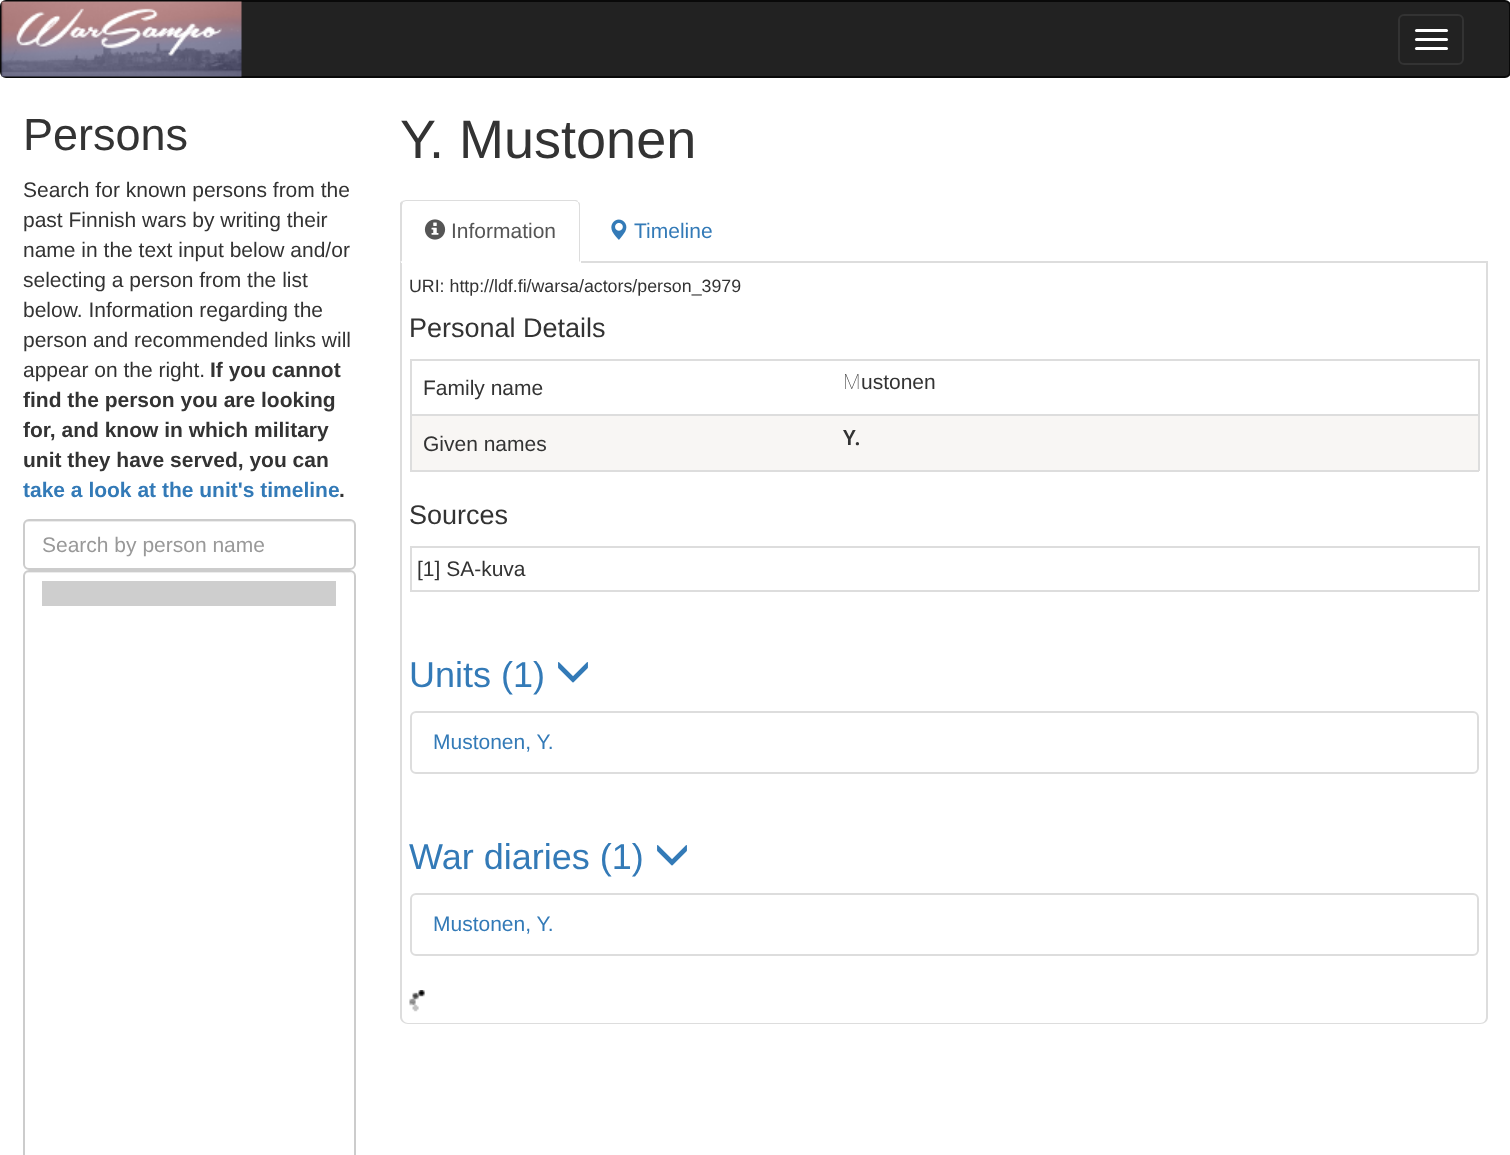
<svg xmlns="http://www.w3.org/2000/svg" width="1510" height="1155">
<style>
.a{font:45px Liberation Sans;fill:#333}
.b{font:21px Liberation Sans;fill:#333}
.c{font:bold 21px Liberation Sans;fill:#333}
.d{font:bold 21px Liberation Sans;fill:#337ab7}
.e{font:21px Liberation Sans;fill:#999}
.f{font:54px Liberation Sans;fill:#333}
.g{font:21px Liberation Sans;fill:#555}
.h{font:21px Liberation Sans;fill:#337ab7}
.i{font:17.8px Liberation Sans;fill:#333}
.j{font:27px Liberation Sans;fill:#333}
.k{font:100 21px Noto Sans;fill:#333}
.l{font:600 21px Noto Sans;fill:#333}
.m{font:36px Liberation Sans;fill:#337ab7}
</style>
<rect width="100%" height="100%" fill="#fff"/>
<rect fill="#222" stroke="#090909" stroke-width="2" x="1" y="1" width="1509" height="76" rx="5"/>
<image href="1.png" x="1" y="1" width="241" height="76"/>
<rect fill="none" stroke="#333" stroke-width="2" x="1399" y="15" width="64" height="49" rx="5"/>
<rect fill="#fff" x="1415" y="29" width="33" height="3" rx="1.5"/>
<rect fill="#fff" x="1415" y="38" width="33" height="3" rx="1.5"/>
<rect fill="#fff" x="1415" y="47" width="33" height="3" rx="1.5"/>
<path fill="#ececec" d="M28 522h322c2 0 4 2 4 4c0-3-2-5-5-5h-320c-3 0-5 2-5 5c0-2 2-4 4-4z"/>
<rect fill="none" stroke="#ccc" stroke-width="2" x="24" y="520" width="331" height="49" rx="5"/>
<path fill="#ececec" d="M28 573h322c2 0 4 2 4 5c0-3-2-6-5-6h-320c-3 0-5 3-5 6c0-3 2-5 4-5z"/>
<rect fill="none" stroke="#ccc" stroke-width="2" x="24" y="571" width="331" height="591" rx="5"/>
<path fill="#cecece" d="M42 581h294v25H42z"/>
<path fill="#ddd" d="M581 261h907v2H581z"/>
<path fill="#ddd" fill-rule="evenodd" d="M400 262h1088v755c0 4-3 7-8 7h-1072c-4 0-8-3-8-7zm2 0h1084v755c0 3-2 6-6 6h-1072c-3 0-6-3-6-6z"/>
<path fill="#fff" d="M407 200h168c3.5 0 6 2.5 6 6v57h-180v-57c0-3.5 2.5-6 6-6z"/>
<path fill="#ddd" d="M406 200l-4 1l1 1l3-1h169l3 1c0-2-2-2-4-2z"/>
<path fill="#ddd" d="M580 262v-56c0-2 0-4-2-4c0 1 1 2 1 4v55z"/>
<path fill="#ddd" d="M400 203l2-2l1 1c0 1-1 2-1 4v55l-2 1z"/>
<image href="2.png" x="424" y="219" width="22" height="21"/>
<image href="3.png" x="611" y="219" width="16" height="21"/>
<path fill="#ddd" d="M410 359h1069v2H410z"/>
<path fill="#ddd" d="M1478 359h2v112H1478z"/>
<path fill="#ddd" d="M410 470h1069v2H410z"/>
<path fill="#ddd" d="M410 359h2v112H410z"/>
<path fill="#f8f6f4" d="M412 416h1066v54H412z"/>
<path fill="#ddd" d="M410 414h1069v2H410z"/>
<path fill="#ddd" d="M410 546h1069v2H410z"/>
<path fill="#ddd" d="M1478 546h2v45H1478z"/>
<path fill="#ddd" d="M410 590h1069v2H410z"/>
<path fill="#ddd" d="M410 546h2v45H410z"/>
<image href="4.png" x="558" y="662" width="30" height="21"/>
<rect fill="none" stroke="#ddd" stroke-width="2" x="411" y="712" width="1067" height="61" rx="5"/>
<image href="4.png" x="657" y="845" width="30" height="21"/>
<rect fill="none" stroke="#ddd" stroke-width="2" x="411" y="894" width="1067" height="61" rx="5"/>
<image href="5.png" x="409" y="990" width="16" height="22"/>
<text class="a" x="23" y="150">Persons</text>
<text class="b" x="23" y="197">Search for known persons from the</text>
<text class="b" x="23" y="227">past Finnish wars by writing their</text>
<text class="b" x="23" y="257">name in the text input below and/or</text>
<text class="b" x="23" y="287">selecting a person from the list</text>
<text class="b" x="23" y="317">below. Information regarding the</text>
<text class="b" x="23" y="347">person and recommended links will</text>
<text class="b" x="23" y="377">appear on the right.</text>
<text class="c" x="210" y="377">If you cannot</text>
<text class="c" x="23" y="407">find the person you are looking</text>
<text class="c" x="23" y="437">for, and know in which military</text>
<text class="c" x="23" y="467">unit they have served, you can</text>
<text class="d" x="23" y="497">take a look at the unit's timeline</text>
<text class="c" x="339" y="497">.</text>
<text class="e" x="42" y="552">Search by person name</text>
<text class="f" x="400" y="158">Y. Mustonen</text>
<text class="g" x="451" y="238">Information</text>
<text class="h" x="634" y="238">Timeline</text>
<text class="i" x="409" y="292">URI: http://ldf.fi/warsa/actors/person_3979</text>
<text class="j" x="409" y="337">Personal Details</text>
<text class="b" x="423" y="395">Family name</text>
<text class="k" x="843" y="389">M</text>
<text class="b" x="861" y="389">ustonen</text>
<text class="b" x="423" y="451">Given names</text>
<text class="l" x="843" y="445">Y.</text>
<text class="j" x="409" y="524">Sources</text>
<text class="b" x="417" y="576">[1] SA-kuva</text>
<text class="m" x="409" y="687">Units (1)</text>
<text class="h" x="433" y="749">Mustonen, Y.</text>
<text class="m" x="409" y="869">War diaries (1)</text>
<text class="h" x="433" y="931">Mustonen, Y.</text>
</svg>
